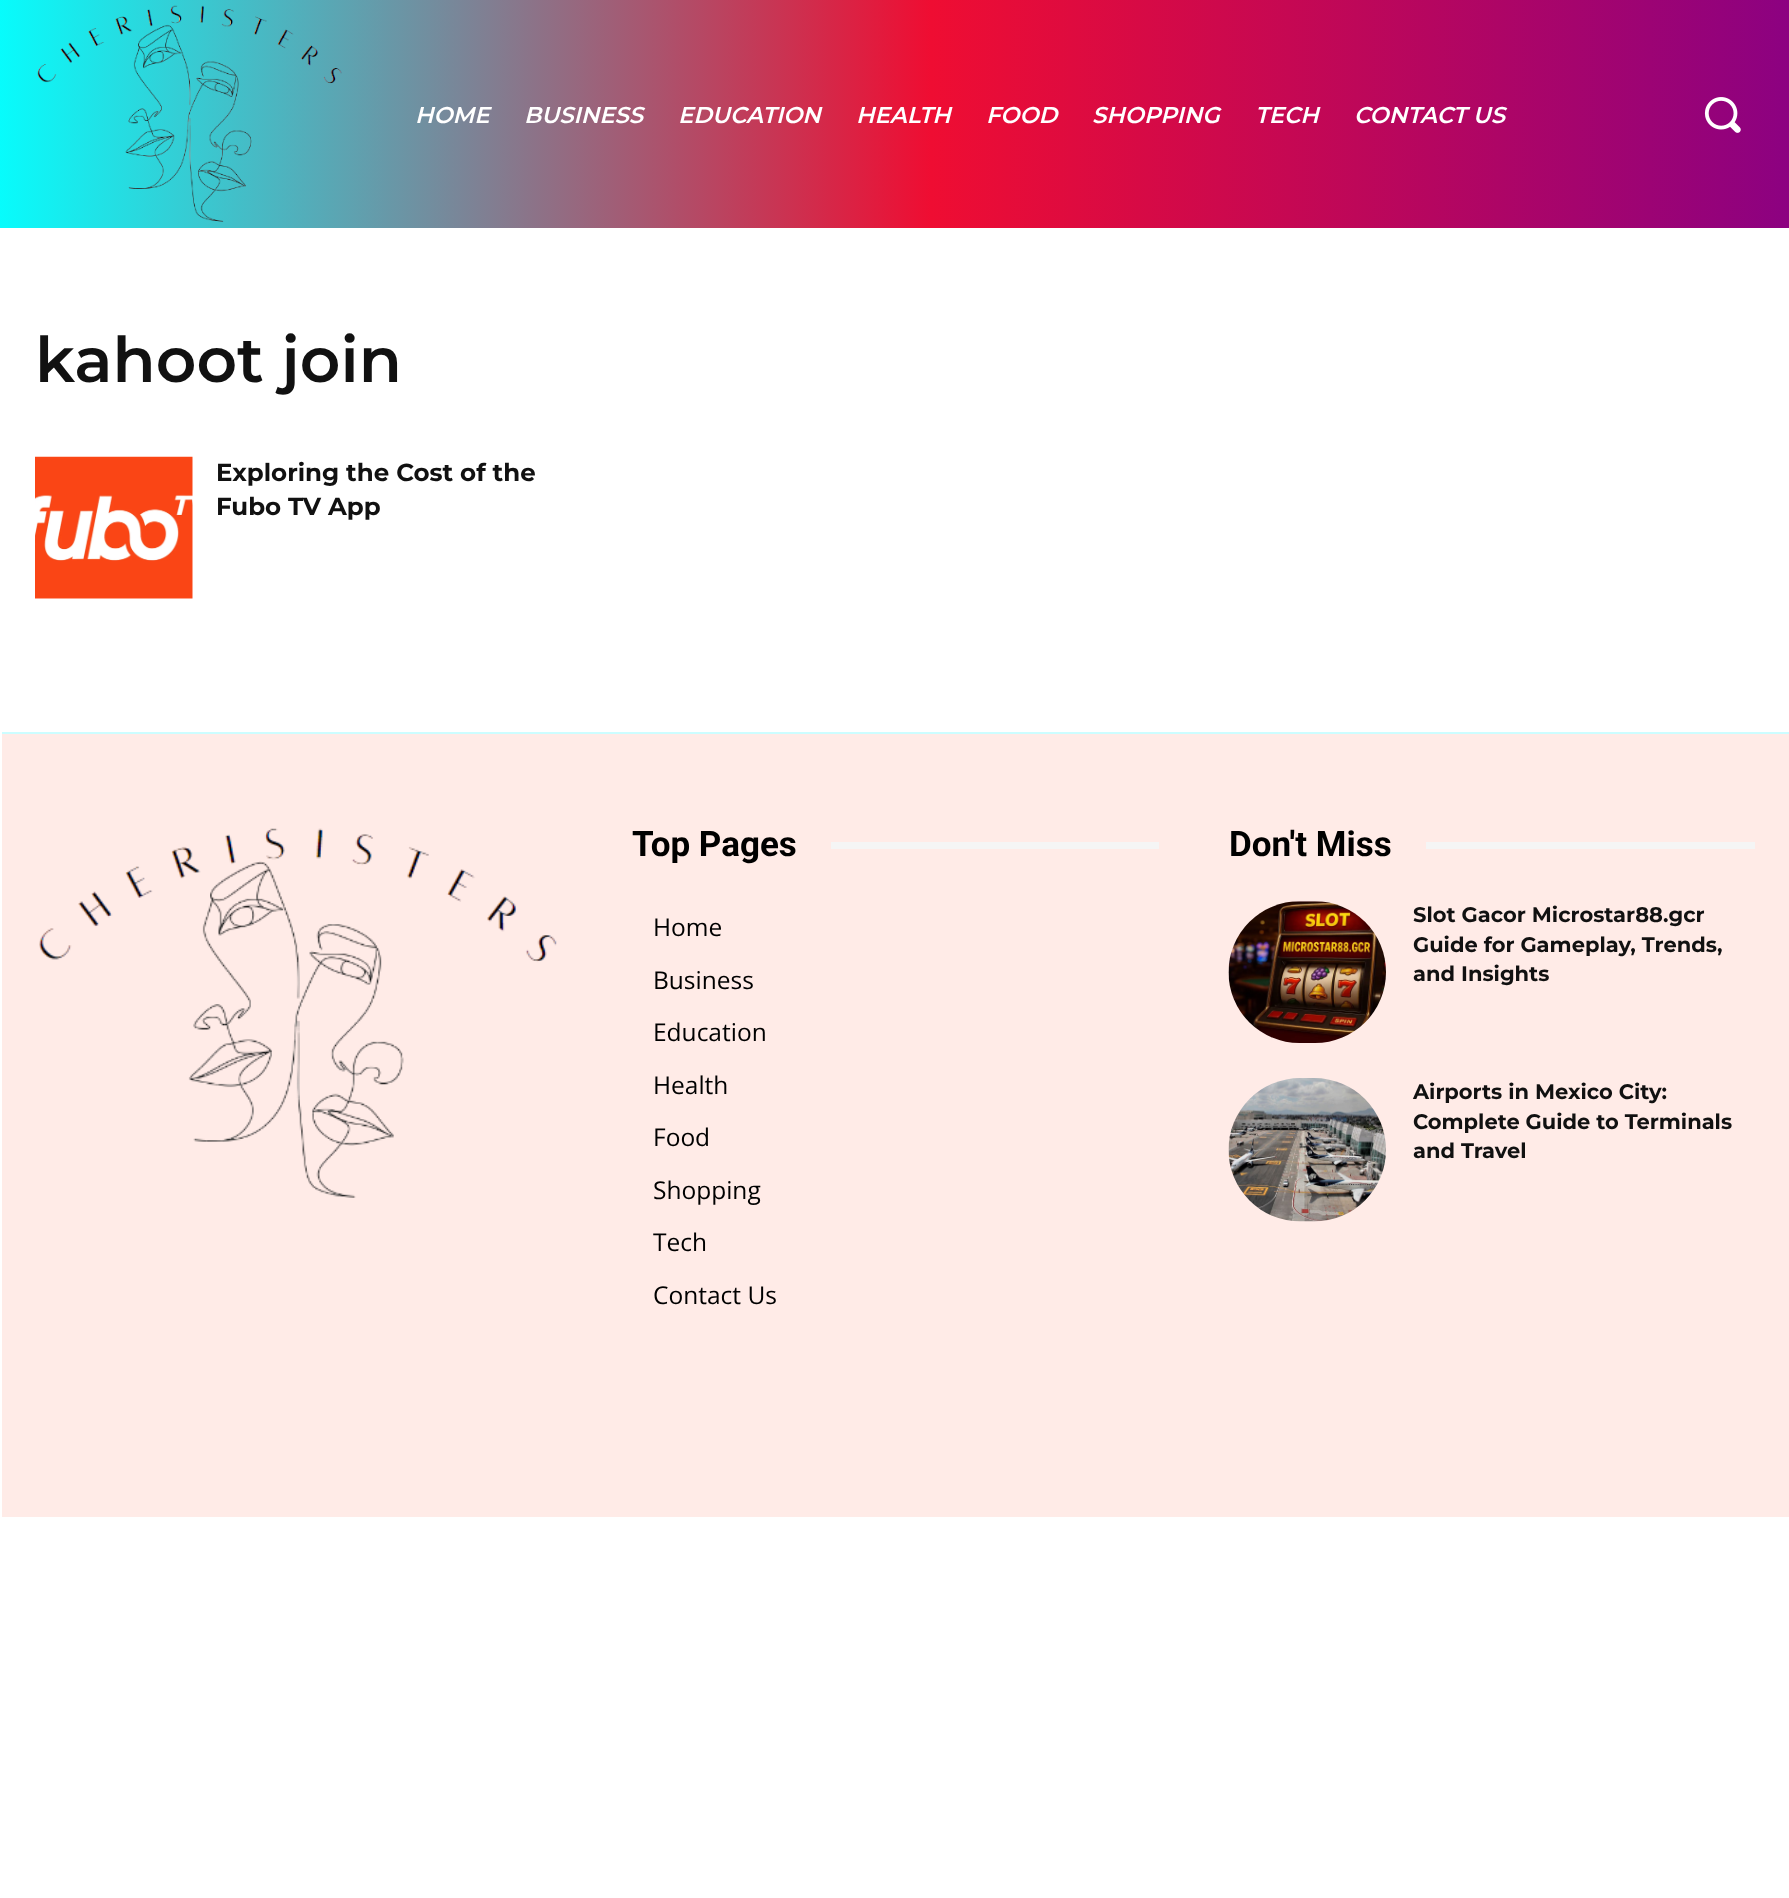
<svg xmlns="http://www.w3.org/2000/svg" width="1789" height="1898">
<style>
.a{font:italic 600 22.75px Montserrat;fill:#fff}
.b{font:600 63px Montserrat;fill:#111}
.c{font:bold 24.5px Montserrat;fill:#111}
.d{font:bold 35px Roboto;fill:#000}
.e{font:24.5px Open Sans;fill:#000}
.f{font:bold 21px Montserrat;fill:#111}
</style>
<defs>
<linearGradient id="g1" gradientUnits="userSpaceOnUse" x1="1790" y1="114" x2="0" y2="114"><stop offset="0" stop-color="#8c0181"/><stop offset="0.48" stop-color="#ef0d32"/><stop offset="1" stop-color="#07fcfc"/></linearGradient>
</defs>
<rect width="100%" height="100%" fill="#fff"/>
<path fill="url(#g1)" d="M0 0h1789v228H0z"/>
<image href="1.png" x="37" y="5" width="305" height="217"/>
<image href="2.png" x="1704" y="97" width="37" height="36"/>
<image href="3.png" x="35" y="456" width="158" height="143"/>
<path fill="#ffebe7" d="M2 734h1787v783H2z"/>
<path fill="#ccfdff" d="M2 732h1787v2H2z"/>
<image href="4.png" x="39" y="828" width="518" height="370"/>
<path fill="#f5f5f5" d="M831 842h328v7H831z"/>
<path fill="#f5f5f5" d="M1426 842h329v7H1426z"/>
<image href="5.png" x="1228" y="901" width="158" height="142"/>
<image href="6.png" x="1228" y="1078" width="158" height="144"/>
<text class="a" x="415" y="123">HOME</text>
<text class="a" x="524" y="123">BUSINESS</text>
<text class="a" x="678" y="123">EDUCATION</text>
<text class="a" x="856" y="123">HEALTH</text>
<text class="a" x="986" y="123">FOOD</text>
<text class="a" x="1092" y="123">SHOPPING</text>
<text class="a" x="1255" y="123">TECH</text>
<text class="a" x="1354" y="123">CONTACT US</text>
<text class="b" x="35" y="382">kahoot join</text>
<text class="c" x="216" y="481">Exploring the Cost of the</text>
<text class="c" x="216" y="515">Fubo TV App</text>
<text class="d" x="632" y="856">Top Pages</text>
<text class="e" x="653" y="936">Home</text>
<text class="e" x="653" y="989">Business</text>
<text class="e" x="653" y="1041">Education</text>
<text class="e" x="653" y="1094">Health</text>
<text class="e" x="653" y="1146">Food</text>
<text class="e" x="653" y="1199">Shopping</text>
<text class="e" x="653" y="1251">Tech</text>
<text class="e" x="653" y="1304">Contact Us</text>
<text class="d" x="1229" y="856">Don't Miss</text>
<text class="f" x="1413" y="922">Slot Gacor Microstar88.gcr</text>
<text class="f" x="1413" y="952">Guide for Gameplay, Trends,</text>
<text class="f" x="1413" y="981">and Insights</text>
<text class="f" x="1413" y="1099">Airports in Mexico City:</text>
<text class="f" x="1413" y="1129">Complete Guide to Terminals</text>
<text class="f" x="1413" y="1158">and Travel</text>
</svg>
